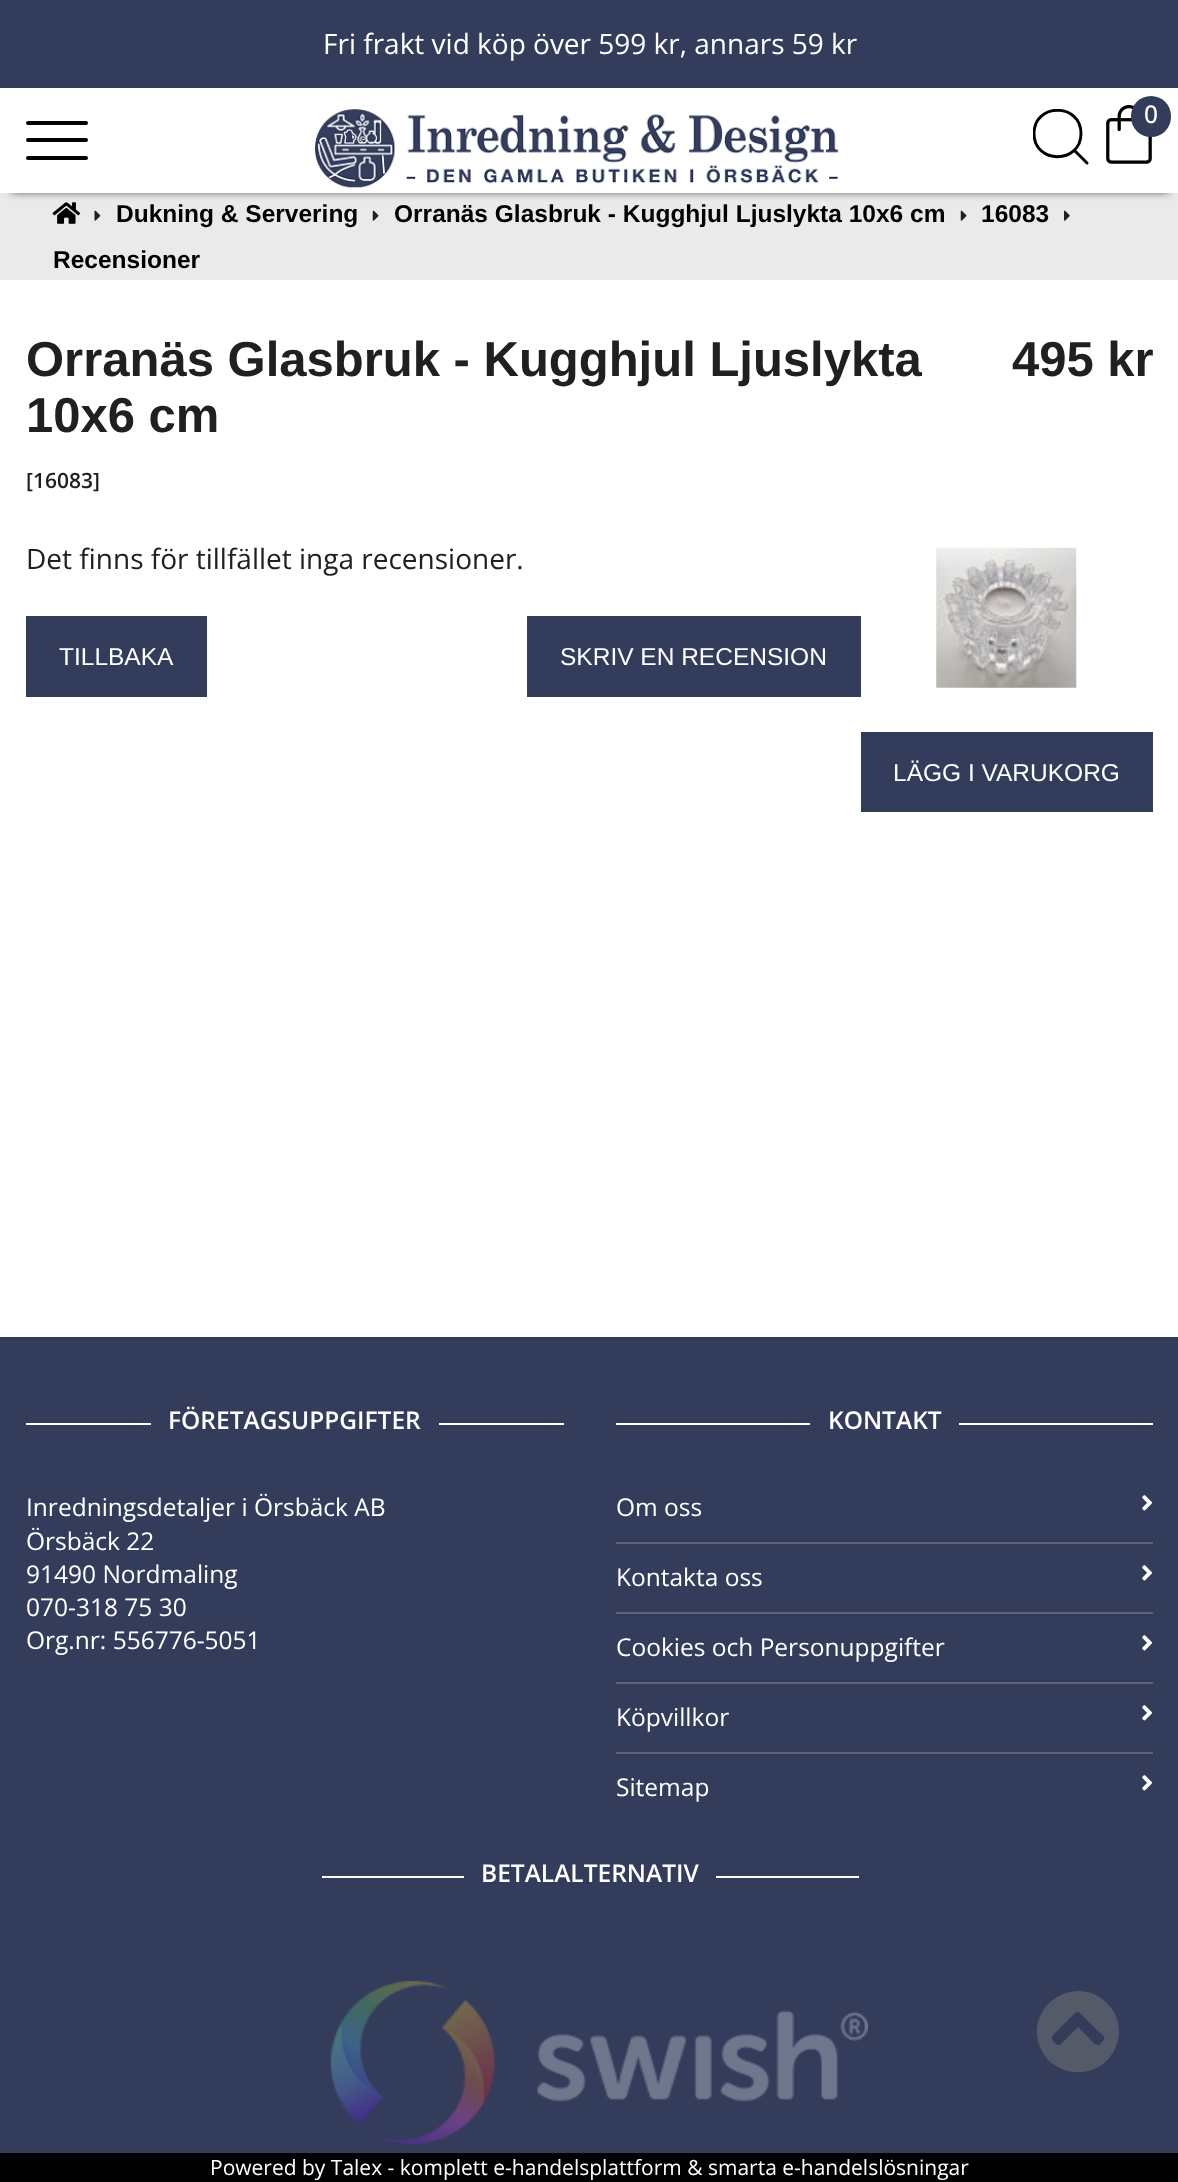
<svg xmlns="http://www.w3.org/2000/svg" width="1178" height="2182">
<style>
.a{font:28px Open Sans;fill:#fff}
.b{font:500 24.5px Open Sans;fill:#fff}
.c{font:bold 24.5px Liberation Sans;fill:#000}
.d{font:bold 49px Liberation Sans;fill:#202020}
.e{font:600 21px Open Sans;fill:#202020}
.f{font:28px Open Sans;fill:#202020}
.g{font:24.5px Liberation Sans;fill:#fff}
.h{font:600 24.5px Open Sans;fill:#fff}
.i{font:24.5px Open Sans;fill:#fff}
.j{font:21px Open Sans;fill:#fff}
</style>
<defs>
<clipPath id="clip1"><path d="M1033 109h56v56H1033z"/></clipPath>
</defs>
<rect width="100%" height="100%" fill="#fff"/>
<path fill="#333c5b" d="M0 0h1178v88H0z"/>
<path fill="#eaeaea" d="M0 193h1178v87H0z"/>
<image href="3.png" x="52" y="202" width="29" height="22"/>
<path fill="#222" filter="blur(5px)" d="M11 107h1158v84H11z"/>
<path fill="#fff" d="M0 96h1178v97H0z"/>
<rect fill="#000" x="26" y="121" width="62" height="4" rx="2"/>
<rect fill="#000" x="26" y="138" width="62" height="4" rx="2"/>
<rect fill="#000" x="26" y="156" width="62" height="4" rx="2"/>
<image href="1.png" x="315" y="109" width="524" height="79"/>
<g clip-path="url(#clip1)">
<path fill="none" stroke="#000" stroke-width="2.9" stroke-linecap="round" stroke-linejoin="round" d="M1075 151l12 12m-53-29.5c0 31 47 31 47 0c0-31-47-31-47 0z"/>
</g>
<image href="2.png" x="1106" y="105" width="46" height="59"/>
<rect fill="#333c5b" x="1131" y="96" width="40" height="41" rx="20"/>
<image href="4.png" x="94" y="210" width="7" height="11"/>
<image href="5.png" x="372" y="210" width="7" height="11"/>
<image href="5.png" x="960" y="210" width="7" height="11"/>
<image href="6.png" x="1064" y="210" width="6" height="11"/>
<path fill="#333c5b" d="M26 616h181v81H26z"/>
<path fill="#333c5b" d="M527 616h334v81H527z"/>
<image href="7.png" x="936" y="547" width="141" height="141"/>
<path fill="#333c5b" d="M861 732h292v80H861z"/>
<path fill="#333c5b" d="M0 1337h1178v816H0z"/>
<path fill="#555a69" d="M1049 2061c-6-7-11-16-12-25c-3-38 43-60 70-33c27 27 5 73-33 69c-10-1-18-5-25-11zm26-48l-15 15c-7 8-12 8-4 16c4 4 8-4 11-6l11-11l11 11c2 2 6 8 10 7l3-3c5-5 2-6-3-10l-15-15c-2-2-5-7-9-4z"/>
<path fill="#fff" d="M26 1423h538v2H26z"/>
<path fill="#333c5b" d="M151 1423h288v2H151z"/>
<path fill="#fff" d="M616 1423h537v2H616z"/>
<path fill="#333c5b" d="M810 1423h149v2H810z"/>
<image href="8.png" x="1142" y="1495" width="10" height="16"/>
<path fill="#5c637c" d="M616 1542h537v2H616z"/>
<image href="8.png" x="1142" y="1565" width="10" height="16"/>
<path fill="#5c637c" d="M616 1612h537v2H616z"/>
<image href="8.png" x="1142" y="1635" width="10" height="16"/>
<path fill="#5c637c" d="M616 1682h537v2H616z"/>
<image href="8.png" x="1142" y="1705" width="10" height="16"/>
<path fill="#5c637c" d="M616 1752h537v2H616z"/>
<image href="8.png" x="1142" y="1775" width="10" height="16"/>
<path fill="#fff" d="M322 1876h537v2H322z"/>
<path fill="#333c5b" d="M464 1876h252v2H464z"/>
<image href="9.png" x="330" y="1981" width="538" height="163"/>
<path fill="#000" d="M0 2153h1178v29H0z"/>
<text class="a" x="323" y="54">Fri frakt vid köp över 599 kr, annars 59 kr</text>
<text class="b" x="1144" y="123">0</text>
<text class="c" x="116" y="222">Dukning &amp; Servering</text>
<text class="c" x="394" y="222">Orranäs Glasbruk - Kugghjul Ljuslykta 10x6 cm</text>
<text class="c" x="981" y="222">16083</text>
<text class="c" x="53" y="268">Recensioner</text>
<text class="d" x="26" y="376">Orranäs Glasbruk - Kugghjul Ljuslykta</text>
<text class="d" x="26" y="432">10x6 cm</text>
<text class="e" x="26" y="488">[16083]</text>
<text class="d" x="1012" y="376">495 kr</text>
<text class="f" x="26" y="569">Det finns för tillfället inga recensioner.</text>
<text class="g" x="59" y="665">TILLBAKA</text>
<text class="g" x="560" y="665">SKRIV EN RECENSION</text>
<text class="g" x="893" y="781">LÄGG I VARUKORG</text>
<text class="h" x="168" y="1429">FÖRETAGSUPPGIFTER</text>
<text class="i" x="26" y="1516">Inredningsdetaljer i Örsbäck AB</text>
<text class="i" x="26" y="1550">Örsbäck 22</text>
<text class="i" x="26" y="1583">91490 Nordmaling</text>
<text class="i" x="26" y="1616">070-318 75 30</text>
<text class="i" x="26" y="1649">Org.nr: 556776-5051</text>
<text class="h" x="828" y="1429">KONTAKT</text>
<text class="i" x="616" y="1516">Om oss</text>
<text class="i" x="616" y="1586">Kontakta oss</text>
<text class="i" x="616" y="1656">Cookies och Personuppgifter</text>
<text class="i" x="616" y="1726">Köpvillkor</text>
<text class="i" x="616" y="1796">Sitemap</text>
<text class="h" x="481" y="1882">BETALALTERNATIV</text>
<text class="j" x="210" y="2175">Powered by Talex - komplett e-handelsplattform &amp; smarta e-handelslösningar</text>
</svg>
